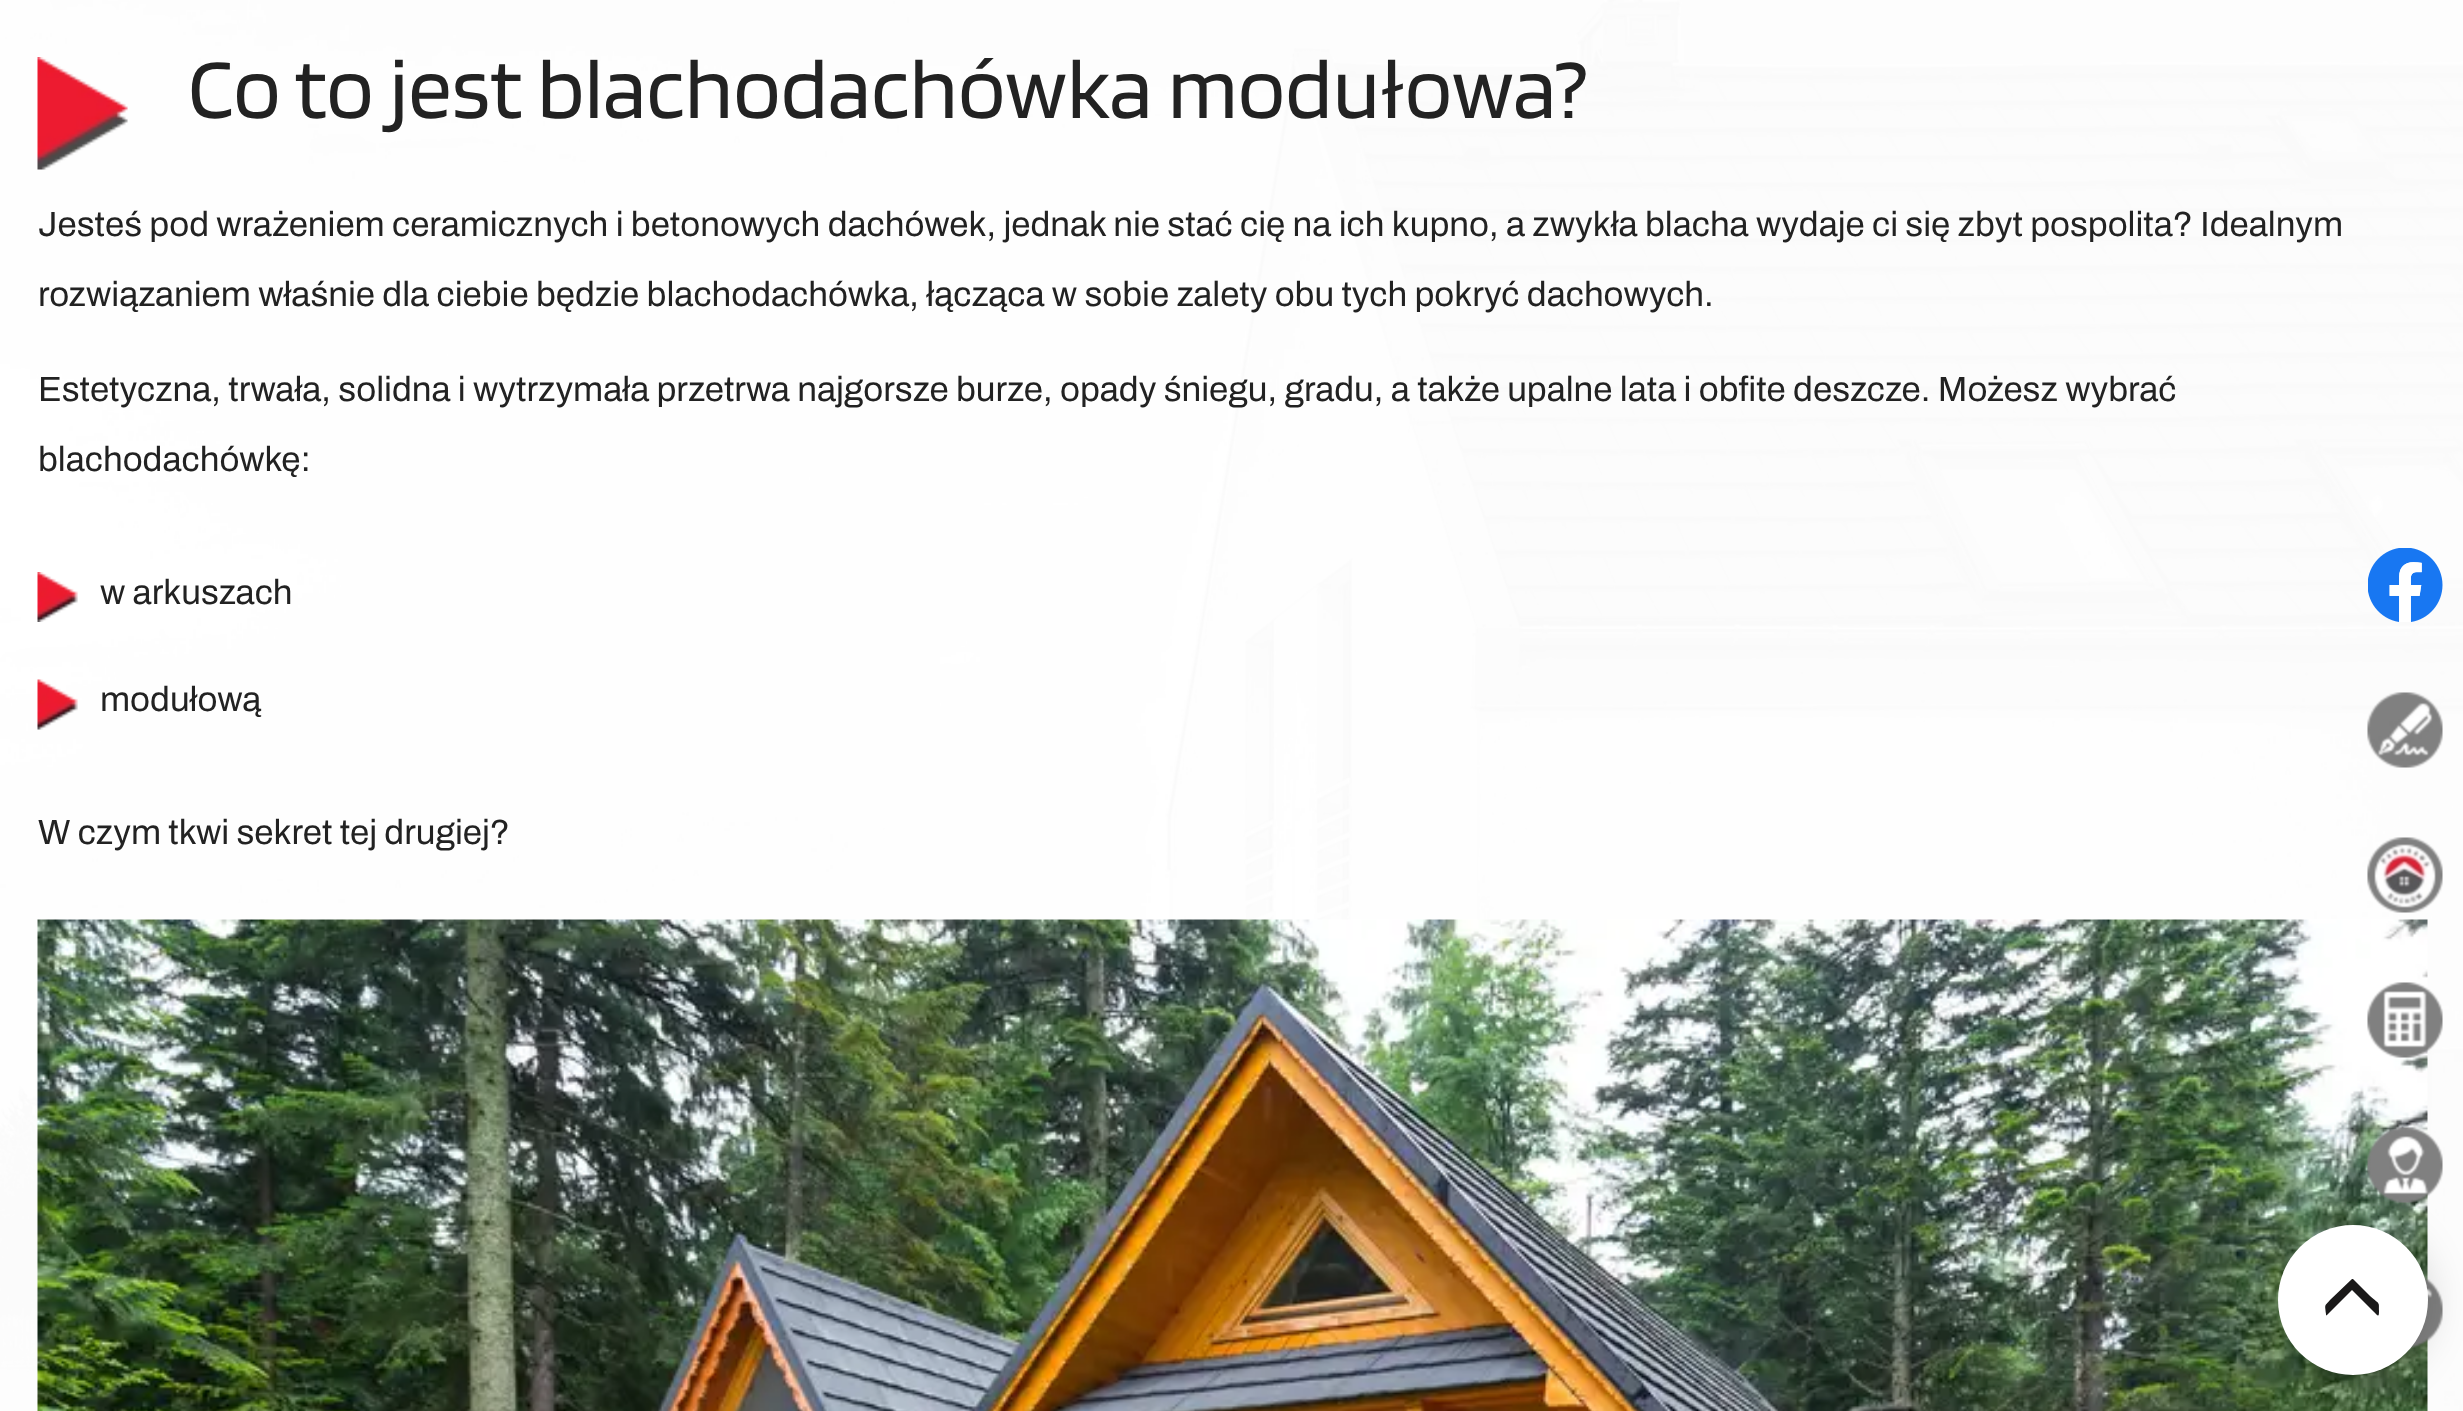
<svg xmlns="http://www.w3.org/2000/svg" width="2463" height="1411">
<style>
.a{font:87.5px Blinker;fill:#222}
.b{font:35px Archivo;fill:#222}
</style>
<rect width="100%" height="100%" fill="#fff"/>
<image href="1.png" x="0" y="0" width="2463" height="1411"/>
<image href="2.png" x="37" y="57" width="91" height="113"/>
<image href="3.png" x="37" y="572" width="41" height="50"/>
<image href="4.png" x="37" y="679" width="41" height="51"/>
<image href="5.png" x="37" y="919" width="2391" height="492"/>
<image href="6.png" x="2368" y="548" width="75" height="74"/>
<image href="7.png" x="2367" y="692" width="76" height="76"/>
<image href="8.png" x="2367" y="837" width="76" height="76"/>
<image href="9.png" x="2367" y="982" width="76" height="76"/>
<image href="10.png" x="2367" y="1127" width="76" height="76"/>
<image href="11.png" x="2410" y="1275" width="33" height="73"/>
<rect fill="#00000026" filter="blur(20px)" x="2275" y="1223" width="155" height="155" rx="77.5"/>
<circle fill="#fff" cx="2353" cy="1300" r="75"/>
<path fill="#1a1919" d="M2353 1279l17 17c10 9 9 5 9 15c0 7-1 5-6 0l-21-21l-25 25c-1 1-1 0-1-1c-1-10-2-7 4-14l22-21z"/>
<text class="a" x="188" y="118">Co to jest blachodachówka modułowa?</text>
<text class="b" x="38" y="236">Jesteś pod wrażeniem ceramicznych i betonowych dachówek, jednak nie stać cię na ich kupno, a zwykła blacha wydaje ci się zbyt pospolita? Idealnym</text>
<text class="b" x="38" y="306">rozwiązaniem właśnie dla ciebie będzie blachodachówka, łącząca w sobie zalety obu tych pokryć dachowych.</text>
<text class="b" x="38" y="401">Estetyczna, trwała, solidna i wytrzymała przetrwa najgorsze burze, opady śniegu, gradu, a także upalne lata i obfite deszcze. Możesz wybrać</text>
<text class="b" x="38" y="471">blachodachówkę:</text>
<text class="b" x="100" y="604">w arkuszach</text>
<text class="b" x="100" y="711">modułową</text>
<text class="b" x="38" y="844">W czym tkwi sekret tej drugiej?</text>
</svg>
